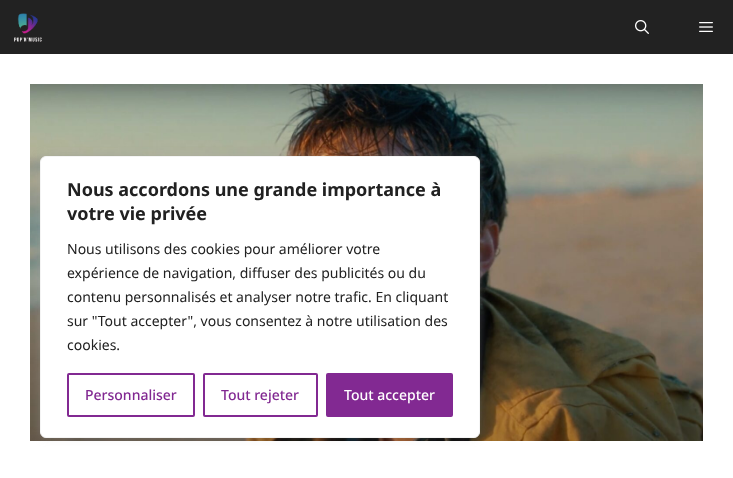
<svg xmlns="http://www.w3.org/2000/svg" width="733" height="478">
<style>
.a{font:bold 18px Noto Sans;fill:#212121}
.b{font:14px Noto Sans;fill:#212121}
.c{font:500 14px Noto Sans;fill:#822992}
.d{font:500 14px Noto Sans;fill:#fff}
</style>
<rect width="100%" height="100%" fill="#fff"/>
<path fill="#222" d="M0 0h733v54H0z"/>
<image href="1.png" x="14" y="13" width="28" height="29"/>
<image href="2.png" x="635" y="20" width="14" height="14"/>
<image href="3.png" x="699" y="22" width="14" height="10"/>
<image href="4.png" x="30" y="84" width="673" height="357"/>
<rect fill="#acabab4d" filter="blur(5px)" x="40" y="155" width="440" height="282" rx="6"/>
<rect fill="#fff" stroke="#f4f4f4" x="40.5" y="156.5" width="439" height="281" rx="5.5"/>
<rect fill="none" stroke="#822992" stroke-width="2" x="68" y="374" width="126" height="42" rx="1"/>
<rect fill="none" stroke="#822992" stroke-width="2" x="204" y="374" width="113" height="42" rx="1"/>
<rect fill="#822992" stroke="#822992" stroke-width="2" x="327" y="374" width="125" height="42" rx="1"/>
<text class="a" x="67" y="196">Nous accordons une grande importance à</text>
<text class="a" x="67" y="220">votre vie privée</text>
<text class="b" x="67" y="254">Nous utilisons des cookies pour améliorer votre</text>
<text class="b" x="67" y="278">expérience de navigation, diffuser des publicités ou du</text>
<text class="b" x="67" y="302">contenu personnalisés et analyser notre trafic. En cliquant</text>
<text class="b" x="67" y="326">sur "Tout accepter", vous consentez à notre utilisation des</text>
<text class="b" x="67" y="350">cookies.</text>
<text class="c" x="85" y="400">Personnaliser</text>
<text class="c" x="221" y="400">Tout rejeter</text>
<text class="d" x="344" y="400">Tout accepter</text>
</svg>
